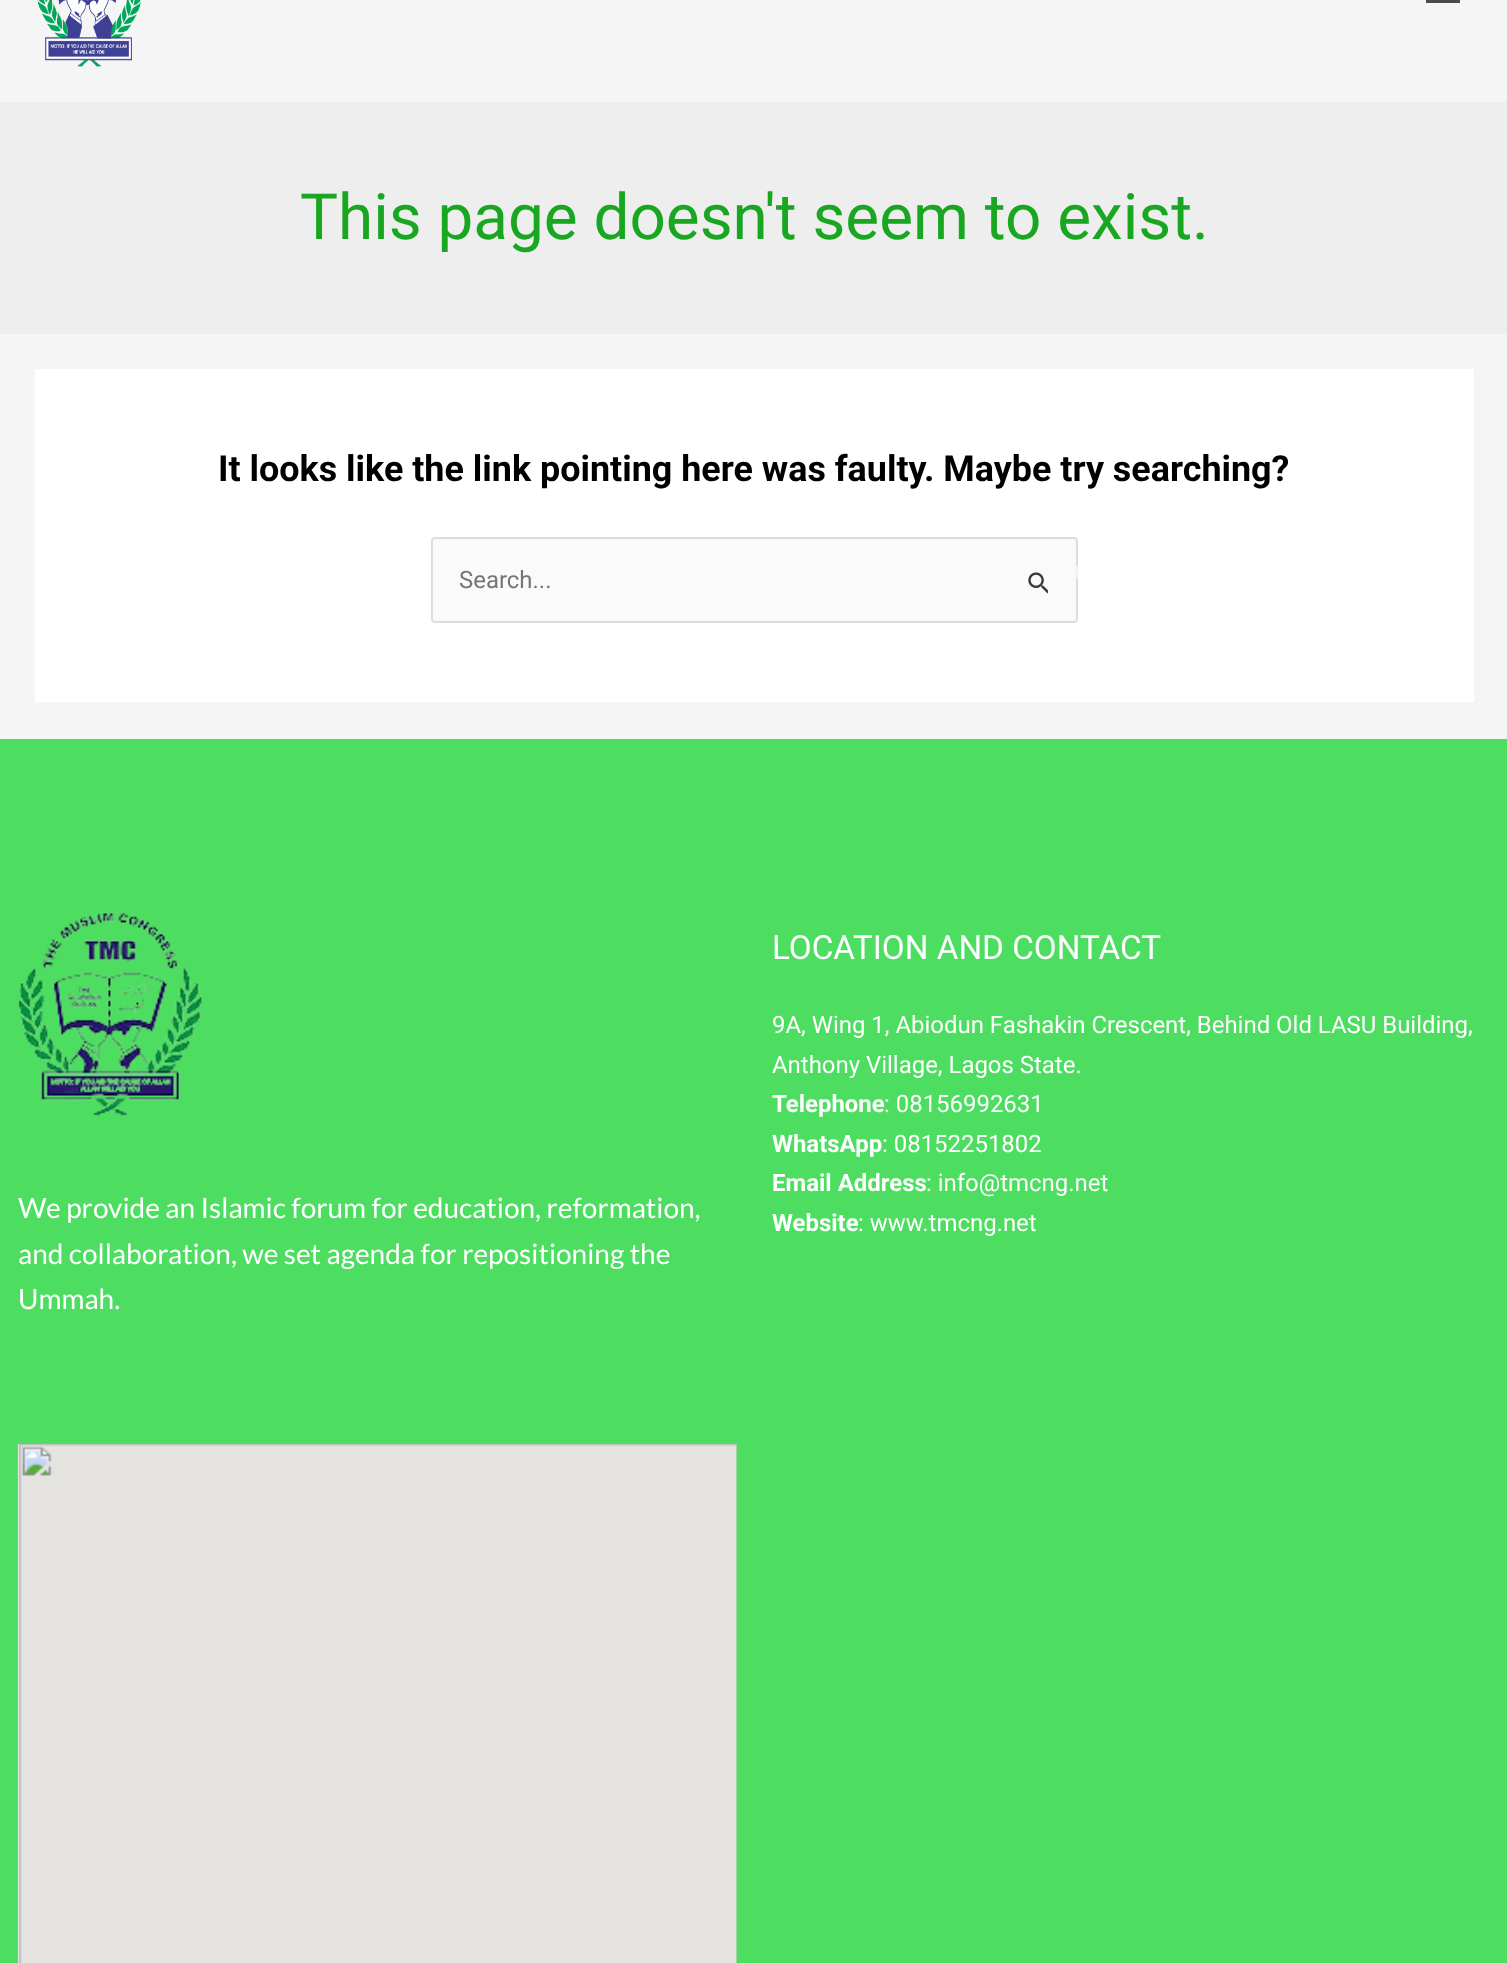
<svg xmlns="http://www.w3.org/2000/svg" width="1507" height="1963">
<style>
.a{font:63.8px Roboto;fill:#19a722}
.b{font:bold 35.9px Roboto;fill:#000}
.c{font:23.95px Roboto;fill:#757575}
.d{font:23.95px Roboto;fill:#f3f3f3}
.e{font:33.25px Roboto;fill:#fff}
.f{font:23.95px Roboto;fill:#fff}
.g{font:bold 23.95px Roboto;fill:#fff}
.h{font:28px Lato;fill:#fff}
</style>
<defs>
<clipPath id="clip1"><rect x="999" y="537" width="79" height="70" rx="4"/></clipPath>
</defs>
<rect width="100%" height="100%" fill="#f5f5f5"/>
<image href="1.png" x="37" y="0" width="105" height="67"/>
<path fill="#494c4f" d="M1426 0h34v3H1426z"/>
<path fill="#eee" d="M0 102h1507v232H0z"/>
<path fill="#fff" d="M35 369h1439v333H35z"/>
<rect fill="#fafafa" stroke="#ddd" stroke-width="2" x="432" y="538" width="645" height="84" rx="3"/>
<image href="2.png" x="1028" y="572" width="20" height="22"/>
<path fill="#4dde61" d="M0 739h1507v1224H0z"/>
<image href="3.png" x="18" y="911" width="184" height="206"/>
<image href="4.png" x="17" y="1444" width="720" height="519"/>
<text class="a" x="300" y="239">This page doesn't seem to exist.</text>
<text class="b" x="218" y="481">It looks like the link pointing here was faulty. Maybe try searching?</text>
<text class="c" x="459" y="588">Search...</text>
<g clip-path="url(#clip1)">
<text class="d" x="1074" y="579">r</text>
</g>
<text class="e" x="772" y="959">LOCATION AND CONTACT</text>
<text class="f" x="772" y="1033">9A, Wing 1, Abiodun Fashakin Crescent, Behind Old LASU Building,</text>
<text class="f" x="772" y="1073">Anthony Village, Lagos State.</text>
<text class="g" x="772" y="1112">Telephone</text>
<text class="f" x="884" y="1112">: 08156992631</text>
<text class="g" x="772" y="1152">WhatsApp</text>
<text class="f" x="882" y="1152">: 08152251802</text>
<text class="g" x="772" y="1191">Email Address</text>
<text class="f" x="926" y="1191">: info@tmcng.net</text>
<text class="g" x="772" y="1231">Website</text>
<text class="f" x="858" y="1231">: www.tmcng.net</text>
<text class="h" x="18" y="1218">We provide an Islamic forum for education, reformation,</text>
<text class="h" x="18" y="1264">and collaboration, we set agenda for repositioning the</text>
<text class="h" x="18" y="1309">Ummah.</text>
</svg>
